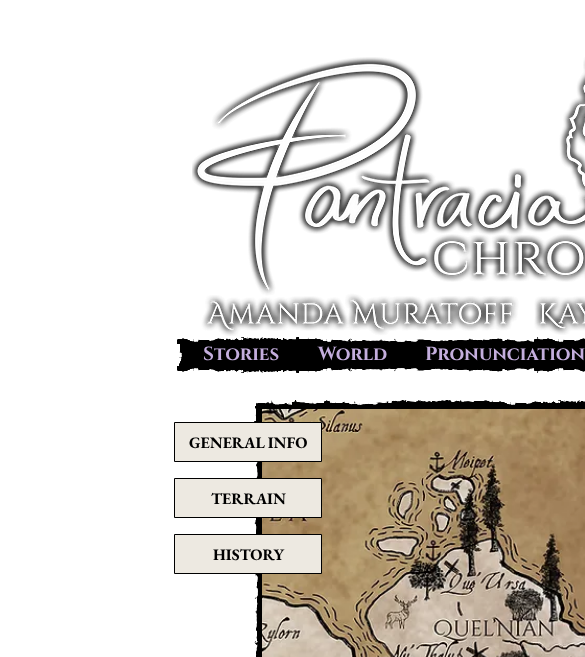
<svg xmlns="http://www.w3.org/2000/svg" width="585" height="657">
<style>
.a{font:bold 19px Cinzel;fill:#c4aedd}
.b{font:bold 16px EB Garamond;fill:#000}
</style>
<rect width="100%" height="100%" fill="#fff"/>
<image href="1.png" x="192" y="57" width="393" height="279"/>
<image href="2.png" x="177" y="337" width="408" height="7"/>
<image href="3.png" x="179" y="344" width="5" height="22"/>
<path fill="#000" d="M184 344h401v22H184z"/>
<image href="4.png" x="177" y="366" width="408" height="7"/>
<image href="5.png" x="254" y="400" width="331" height="257"/>
<image href="6.png" x="262" y="409" width="323" height="248"/>
<path fill="#ede9e1" stroke="#000" d="M174.5 422.5h147v39H174.5z"/>
<path fill="#ede9e1" stroke="#000" d="M174.5 478.5h147v39H174.5z"/>
<path fill="#ede9e1" stroke="#000" d="M174.5 534.5h147v39H174.5z"/>
<text class="a" x="203" y="360">Stories</text>
<text class="a" x="318" y="360">World</text>
<text class="a" x="425" y="360">Pronunciation</text>
<text class="b" x="189" y="448">GENERAL INFO</text>
<text class="b" x="211" y="504">TERRAIN</text>
<text class="b" x="213" y="560">HISTORY</text>
</svg>
